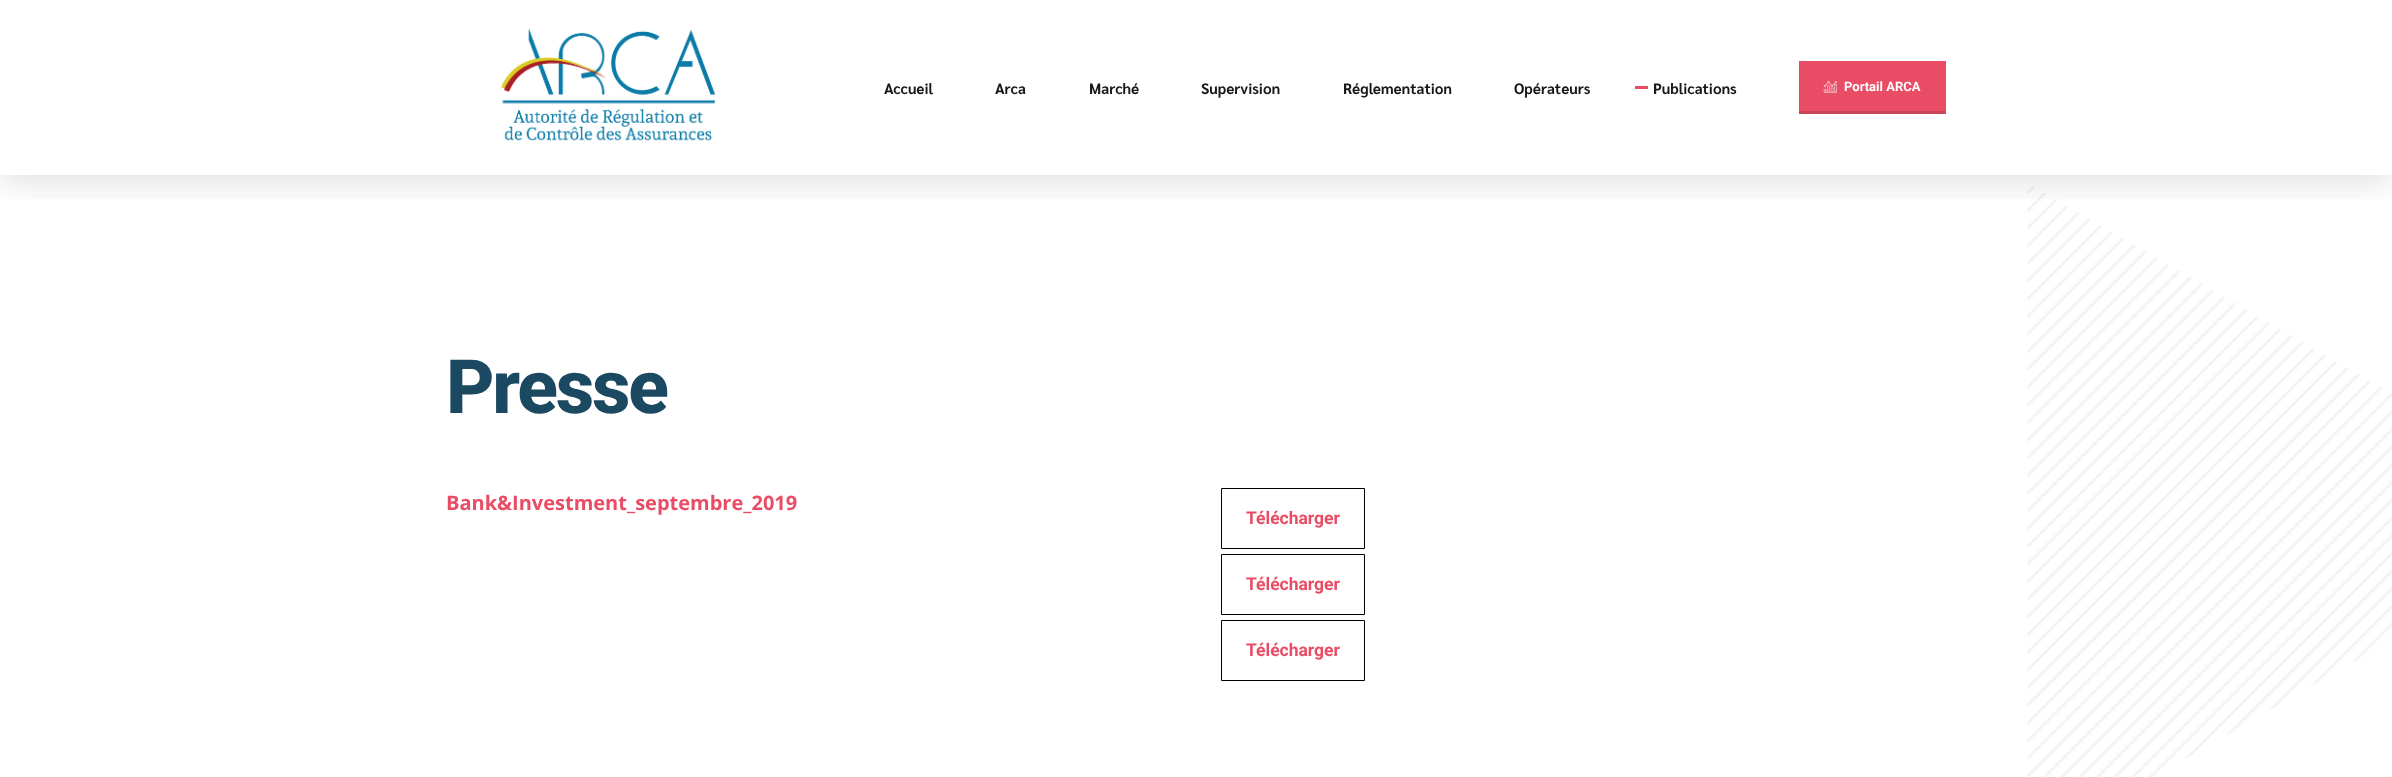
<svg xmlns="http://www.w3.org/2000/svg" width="2392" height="777">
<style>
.a{font:bold 15px Sarabun;fill:#181818}
.b{font:bold 13px Roboto;fill:#fff}
.c{font:800 75px Roboto;letter-spacing:-2.25px;fill:#1b4962}
.d{font:bold 20px Open Sans;fill:#e94d65}
.e{font:bold 17.5px Roboto;fill:#e94d65}
</style>
<defs>
<clipPath id="clip1"><path d="M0 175h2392v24H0z"/></clipPath>
</defs>
<rect width="100%" height="100%" fill="#fff"/>
<image href="3.png" x="2027" y="186" width="365" height="591"/>
<g clip-path="url(#clip1)">
<path fill="#00000026" filter="blur(19px)" d="M0 3h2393v175H0z"/>
</g>
<image href="1.png" x="500" y="29" width="216" height="112"/>
<path fill="#e94d65" d="M1635 86h13v3H1635z"/>
<path fill="#e94d65" d="M1799 61h147v50H1799z"/>
<path fill="#ca4559" d="M1799 111h147v3H1799z"/>
<image href="2.png" x="1823" y="81" width="14" height="12"/>
<path fill="none" stroke="#000" d="M1221.5 488.5h143v60H1221.5z"/>
<path fill="none" stroke="#000" d="M1221.5 554.5h143v60H1221.5z"/>
<path fill="none" stroke="#000" d="M1221.5 620.5h143v60H1221.5z"/>
<text class="a" x="884" y="94">Accueil</text>
<text class="a" x="995" y="94">Arca</text>
<text class="a" x="1089" y="94">Marché</text>
<text class="a" x="1201" y="94">Supervision</text>
<text class="a" x="1343" y="94">Réglementation</text>
<text class="a" x="1514" y="94">Opérateurs</text>
<text class="a" x="1653" y="94">Publications</text>
<text class="b" x="1844" y="91">Portail ARCA</text>
<text class="c" x="446" y="413">Presse</text>
<text class="d" x="446" y="510">Bank&amp;Investment_septembre_2019</text>
<text class="e" x="1246" y="524">Télécharger</text>
<text class="e" x="1246" y="590">Télécharger</text>
<text class="e" x="1246" y="656">Télécharger</text>
</svg>
